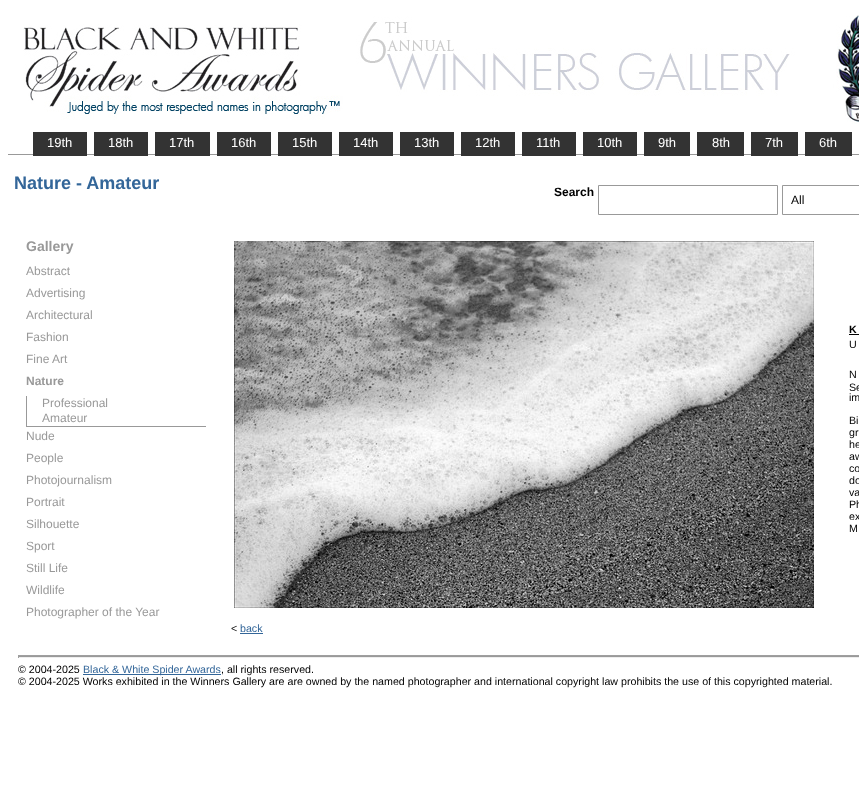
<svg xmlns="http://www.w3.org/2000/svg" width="859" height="809">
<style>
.a{font:13px Liberation Sans;fill:#fff}
.b{font:bold 18px Liberation Sans;fill:#369}
.c{font:bold 12px Liberation Sans;fill:#000}
.d{font:12px Liberation Sans;fill:#000}
.e{font:bold 14px Liberation Sans;fill:#999}
.f{font:12px Liberation Sans;fill:#999}
.g{font:bold 12px Liberation Sans;fill:#999}
.h{font:bold 10.67px Liberation Sans;fill:#000}
.i{font:10.67px Liberation Sans;fill:#000}
.j{font:10.67px Liberation Sans;fill:#369}
</style>
<rect width="100%" height="100%" fill="#fff"/>
<image href="1.png" x="23" y="15" width="836" height="109"/>
<path fill="#999" d="M8 154h851v1H8z"/>
<path fill="#333" d="M33 132h54v24H33z"/>
<path fill="#333" d="M94 132h54v24H94z"/>
<path fill="#333" d="M155 132h55v24H155z"/>
<path fill="#333" d="M217 132h54v24H217z"/>
<path fill="#333" d="M278 132h54v24H278z"/>
<path fill="#333" d="M339 132h54v24H339z"/>
<path fill="#333" d="M400 132h54v24H400z"/>
<path fill="#333" d="M461 132h54v24H461z"/>
<path fill="#333" d="M522 132h54v24H522z"/>
<path fill="#333" d="M583 132h54v24H583z"/>
<path fill="#333" d="M644 132h46v24H644z"/>
<path fill="#333" d="M697 132h47v24H697z"/>
<path fill="#333" d="M751 132h47v24H751z"/>
<path fill="#333" d="M805 132h47v24H805z"/>
<path fill="none" stroke="#999" d="M598.5 185.5h179v29H598.5z"/>
<path fill="none" stroke="#999" d="M782.5 185.5h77v29H782.5z"/>
<path fill="#999" d="M26 426h180v1H26z"/>
<path fill="#999" d="M26 396h1v31H26z"/>
<image href="2.png" x="234" y="241" width="580" height="367"/>
<path fill="#000" d="M849 334h10v1H849z"/>
<path fill="#369" d="M240 633h23v1H240z"/>
<path fill="#999" d="M18 656h841v1H18z"/>
<path fill="#9f9f9f" d="M18 655h841v1H18z"/>
<path fill="#eee" d="M18 657h841v1H18z"/>
<path fill="#9f9f9f" d="M18 655h1v3H18z"/>
<path fill="#369" d="M83 674h138v1H83z"/>
<text class="a" x="47" y="147">19th</text>
<text class="a" x="108" y="147">18th</text>
<text class="a" x="169" y="147">17th</text>
<text class="a" x="231" y="147">16th</text>
<text class="a" x="292" y="147">15th</text>
<text class="a" x="353" y="147">14th</text>
<text class="a" x="414" y="147">13th</text>
<text class="a" x="475" y="147">12th</text>
<text class="a" x="536" y="147">11th</text>
<text class="a" x="597" y="147">10th</text>
<text class="a" x="658" y="147">9th</text>
<text class="a" x="712" y="147">8th</text>
<text class="a" x="765" y="147">7th</text>
<text class="a" x="819" y="147">6th</text>
<text class="b" x="14" y="189">Nature - Amateur</text>
<text class="c" x="554" y="196">Search</text>
<text class="d" x="791" y="204">All</text>
<text class="e" x="26" y="251">Gallery</text>
<text class="f" x="26" y="275">Abstract</text>
<text class="f" x="26" y="297">Advertising</text>
<text class="f" x="26" y="319">Architectural</text>
<text class="f" x="26" y="341">Fashion</text>
<text class="f" x="26" y="363">Fine Art</text>
<text class="g" x="26" y="385">Nature</text>
<text class="f" x="42" y="407">Professional</text>
<text class="f" x="42" y="422">Amateur</text>
<text class="f" x="26" y="440">Nude</text>
<text class="f" x="26" y="462">People</text>
<text class="f" x="26" y="484">Photojournalism</text>
<text class="f" x="26" y="506">Portrait</text>
<text class="f" x="26" y="528">Silhouette</text>
<text class="f" x="26" y="550">Sport</text>
<text class="f" x="26" y="572">Still Life</text>
<text class="f" x="26" y="594">Wildlife</text>
<text class="f" x="26" y="616">Photographer of the Year</text>
<text class="h" x="849" y="333">K</text>
<text class="i" x="849" y="348">U</text>
<text class="i" x="849" y="378">N</text>
<text class="i" x="849" y="391">Se</text>
<text class="i" x="849" y="401">im</text>
<text class="i" x="849" y="424">Bi</text>
<text class="i" x="849" y="436">gr</text>
<text class="i" x="849" y="448">he</text>
<text class="i" x="849" y="460">aw</text>
<text class="i" x="849" y="472">co</text>
<text class="i" x="849" y="484">do</text>
<text class="i" x="849" y="496">va</text>
<text class="i" x="849" y="508">Ph</text>
<text class="i" x="849" y="520">ex</text>
<text class="i" x="849" y="532">M</text>
<text class="i" x="231" y="632">&lt;</text>
<text class="j" x="240" y="632">back</text>
<text class="i" x="18" y="673">© 2004-2025</text>
<text class="j" x="83" y="673">Black &amp; White Spider Awards</text>
<text class="i" x="221" y="673">, all rights reserved.</text>
<text class="i" x="18" y="685">© 2004-2025 Works exhibited in the Winners Gallery are are owned by the named photographer and international copyright law prohibits the use of this copyrighted material.</text>
</svg>
